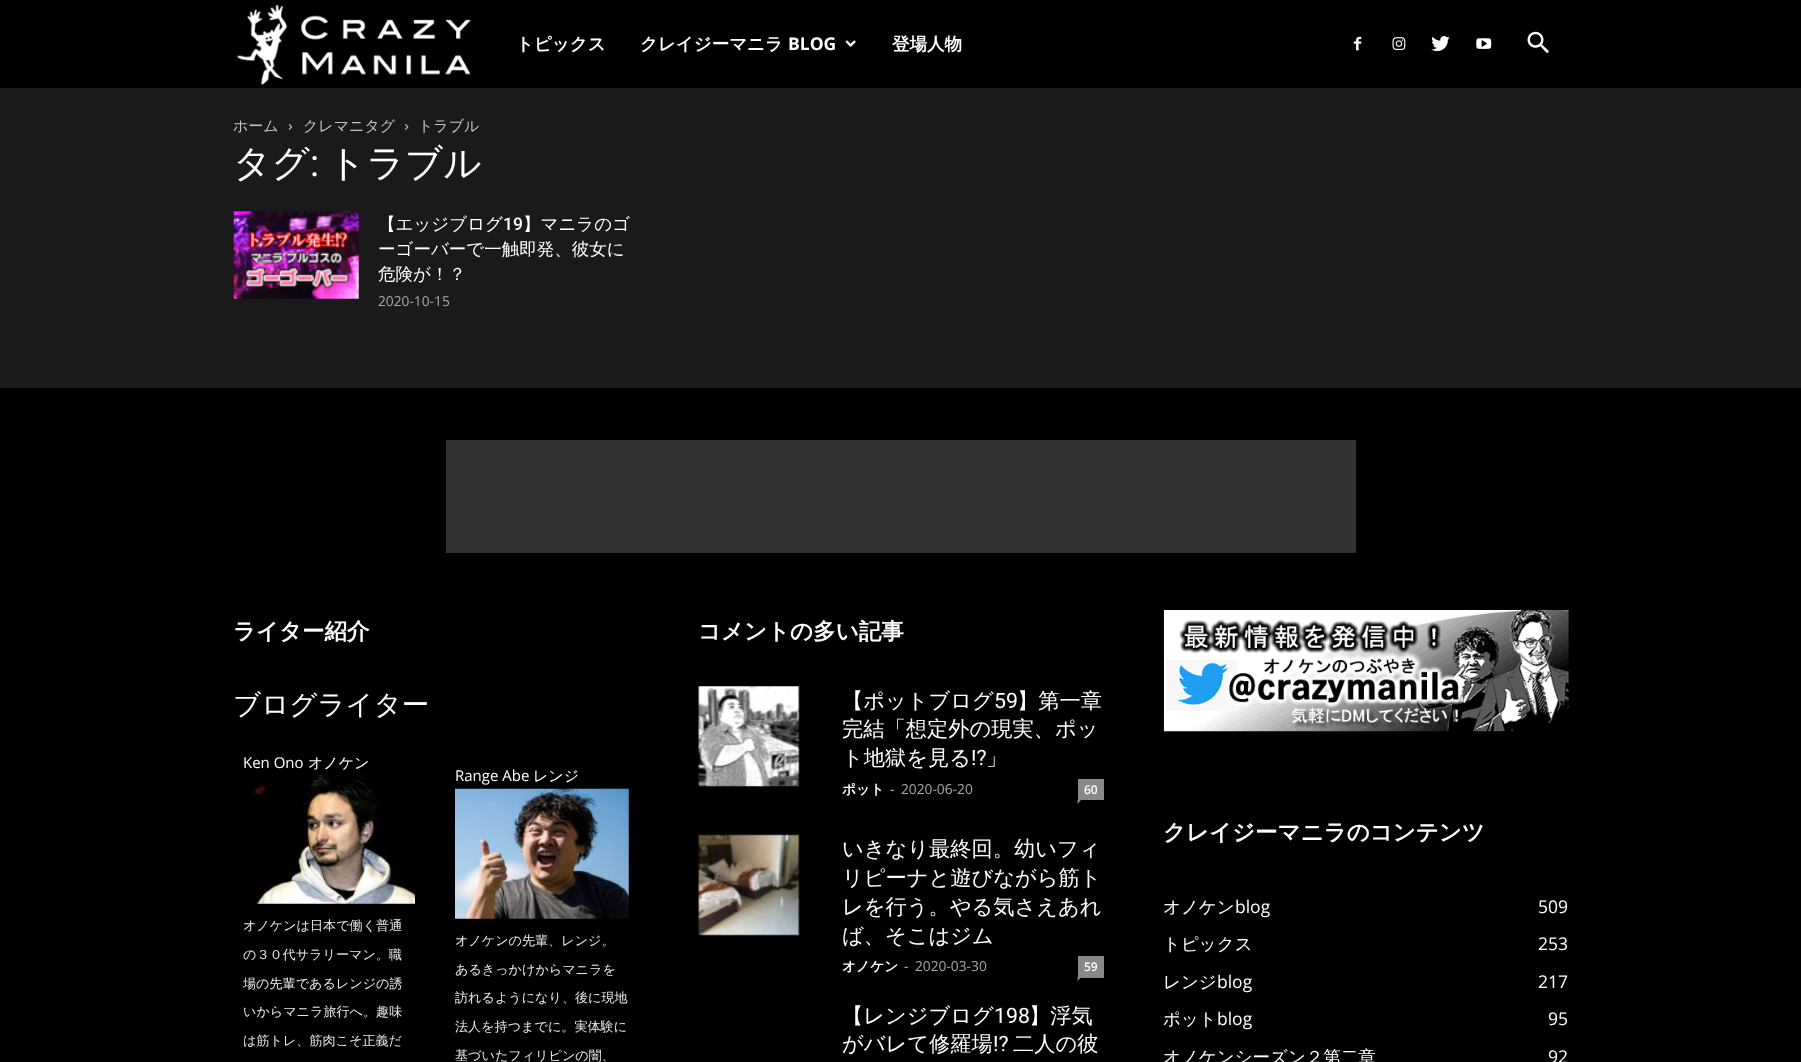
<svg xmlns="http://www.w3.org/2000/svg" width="1801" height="1062">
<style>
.a{font:bold 17.5px WenQuanYi Zen Hei;fill:#fff}
.b{font:bold 17.5px Open Sans;fill:#fff}
.c{font:500 15px WenQuanYi Zen Hei;fill:#c3c3c3}
.d{font:500 37.5px WenQuanYi Zen Hei;fill:#fff}
.e{font:37.5px Roboto;fill:#fff}
.f{font:500 17.5px WenQuanYi Zen Hei;fill:#fff}
.g{font:500 17.5px Roboto;fill:#fff}
.h{font:13.75px Open Sans;fill:#aaa}
.i{font:bold 22.5px WenQuanYi Zen Hei;fill:#fff}
.j{font:500 27.5px WenQuanYi Zen Hei;fill:#fff}
.k{font:15px Open Sans;fill:#fff}
.l{font:500 15px WenQuanYi Zen Hei;fill:#fff}
.m{font:500 13.1px WenQuanYi Zen Hei;fill:#eaeaea}
.n{font:500 21.25px WenQuanYi Zen Hei;fill:#fff}
.o{font:21.25px Roboto;fill:#fff}
.p{font:bold 13.75px WenQuanYi Zen Hei;fill:#fff}
.q{font:13.75px Open Sans;fill:#ccc}
.r{font:600 12px Open Sans;fill:#fff}
.s{font:17.5px Open Sans;fill:#fff}
</style>
<rect width="100%" height="100%" fill="#1a1a1a"/>
<path fill="#000" d="M0 0h1801v88H0z"/>
<image href="1.png" x="237" y="5" width="234" height="80"/>
<image href="2.png" x="845" y="40" width="11" height="7"/>
<image href="3.png" x="1353" y="36" width="9" height="15"/>
<image href="4.png" x="1392" y="37" width="14" height="13"/>
<image href="5.png" x="1431" y="36" width="19" height="16"/>
<image href="6.png" x="1476" y="38" width="16" height="11"/>
<image href="7.png" x="1527" y="31" width="22" height="22"/>
<image href="8.png" x="288" y="124" width="5" height="6"/>
<image href="9.png" x="405" y="124" width="4" height="6"/>
<image href="10.png" x="233" y="211" width="126" height="88"/>
<path fill="#000" d="M0 388h1801v674H0z"/>
<path fill="#333" d="M446 440h910v113H446z"/>
<image href="11.png" x="244" y="775" width="171" height="129"/>
<image href="12.png" x="455" y="788" width="174" height="131"/>
<image href="13.png" x="698" y="686" width="102" height="101"/>
<path fill="#888" d="M1078 779h26v21H1078z"/>
<path fill="#888" d="M1077.5 800h3.5l-3.5 4z"/>
<image href="14.png" x="698" y="834" width="102" height="102"/>
<path fill="#888" d="M1078 956h26v22H1078z"/>
<path fill="#888" d="M1077.5 977.5h3.5l-3.5 3.5z"/>
<image href="15.png" x="1163" y="610" width="406" height="122"/>
<text class="a" x="516" y="50">トピックス</text>
<text class="a" x="640" y="50">クレイジーマニラ</text>
<text class="b" x="788" y="50">BLOG</text>
<text class="a" x="892" y="50">登場人物</text>
<text class="c" x="233" y="131">ホーム</text>
<text class="c" x="303" y="131">クレマニタグ</text>
<text class="c" x="418" y="131">トラブル</text>
<text class="d" x="233" y="176">タグ</text>
<text class="e" x="310" y="176">:</text>
<text class="d" x="328" y="176">トラブル</text>
<text class="f" x="378" y="230">【エッジブログ</text>
<text class="g" x="503" y="230">19</text>
<text class="f" x="523" y="230">】マニラのゴ</text>
<text class="f" x="378" y="255">ーゴーバーで一触即発、彼女に</text>
<text class="f" x="378" y="280">危険が！？</text>
<text class="h" x="378" y="306">2020-10-15</text>
<text class="i" x="233" y="639">ライター紹介</text>
<text class="j" x="233" y="714">ブログライター</text>
<text class="k" x="243" y="768">Ken Ono</text>
<text class="l" x="308" y="768">オノケン</text>
<text class="m" x="243" y="930">オノケンは日本で働く普通</text>
<text class="m" x="243" y="959">の３０代サラリーマン。職</text>
<text class="m" x="243" y="988">場の先輩であるレンジの誘</text>
<text class="m" x="243" y="1016">いからマニラ旅行へ。趣味</text>
<text class="m" x="243" y="1045">は筋トレ、筋肉こそ正義だ</text>
<text class="k" x="455" y="781">Range Abe</text>
<text class="l" x="533" y="781">レンジ</text>
<text class="m" x="455" y="945">オノケンの先輩、レンジ。</text>
<text class="m" x="455" y="974">あるきっかけからマニラを</text>
<text class="m" x="455" y="1002">訪れるようになり、後に現地</text>
<text class="m" x="455" y="1031">法人を持つまでに。実体験に</text>
<text class="m" x="455" y="1060">基づいたフィリピンの闇、</text>
<text class="i" x="698" y="639">コメントの多い記事</text>
<text class="n" x="842" y="708">【ポットブログ</text>
<text class="o" x="994" y="708">59</text>
<text class="n" x="1017" y="708">】第一章</text>
<text class="n" x="842" y="736">完結「想定外の現実、ポッ</text>
<text class="n" x="842" y="765">ト地獄を見る</text>
<text class="o" x="971" y="765">!?</text>
<text class="n" x="986" y="765">」</text>
<text class="p" x="842" y="794">ポット</text>
<text class="q" x="890" y="794">-</text>
<text class="h" x="901" y="794">2020-06-20</text>
<text class="r" x="1084" y="794">60</text>
<text class="n" x="842" y="856">いきなり最終回。幼いフィ</text>
<text class="n" x="842" y="885">リピーナと遊びながら筋ト</text>
<text class="n" x="842" y="914">レを行う。やる気さえあれ</text>
<text class="n" x="842" y="943">ば、そこはジム</text>
<text class="p" x="842" y="971">オノケン</text>
<text class="q" x="904" y="971">-</text>
<text class="h" x="915" y="971">2020-03-30</text>
<text class="r" x="1084" y="971">59</text>
<text class="n" x="842" y="1023">【レンジブログ</text>
<text class="o" x="994" y="1023">198</text>
<text class="n" x="1029" y="1023">】浮気</text>
<text class="n" x="842" y="1051">がバレて修羅場</text>
<text class="o" x="993" y="1051">!?</text>
<text class="n" x="1013" y="1051">二人の彼</text>
<text class="i" x="1163" y="840">クレイジーマニラのコンテンツ</text>
<text class="f" x="1163" y="913">オノケン</text>
<text class="s" x="1235" y="913">blog</text>
<text class="s" x="1538" y="913">509</text>
<text class="f" x="1163" y="950">トピックス</text>
<text class="s" x="1538" y="950">253</text>
<text class="f" x="1163" y="988">レンジ</text>
<text class="s" x="1217" y="988">blog</text>
<text class="s" x="1538" y="988">217</text>
<text class="f" x="1163" y="1025">ポット</text>
<text class="s" x="1217" y="1025">blog</text>
<text class="s" x="1548" y="1025">95</text>
<text class="f" x="1163" y="1063">オノケンシーズン２第二章</text>
<text class="s" x="1548" y="1063">92</text>
</svg>
